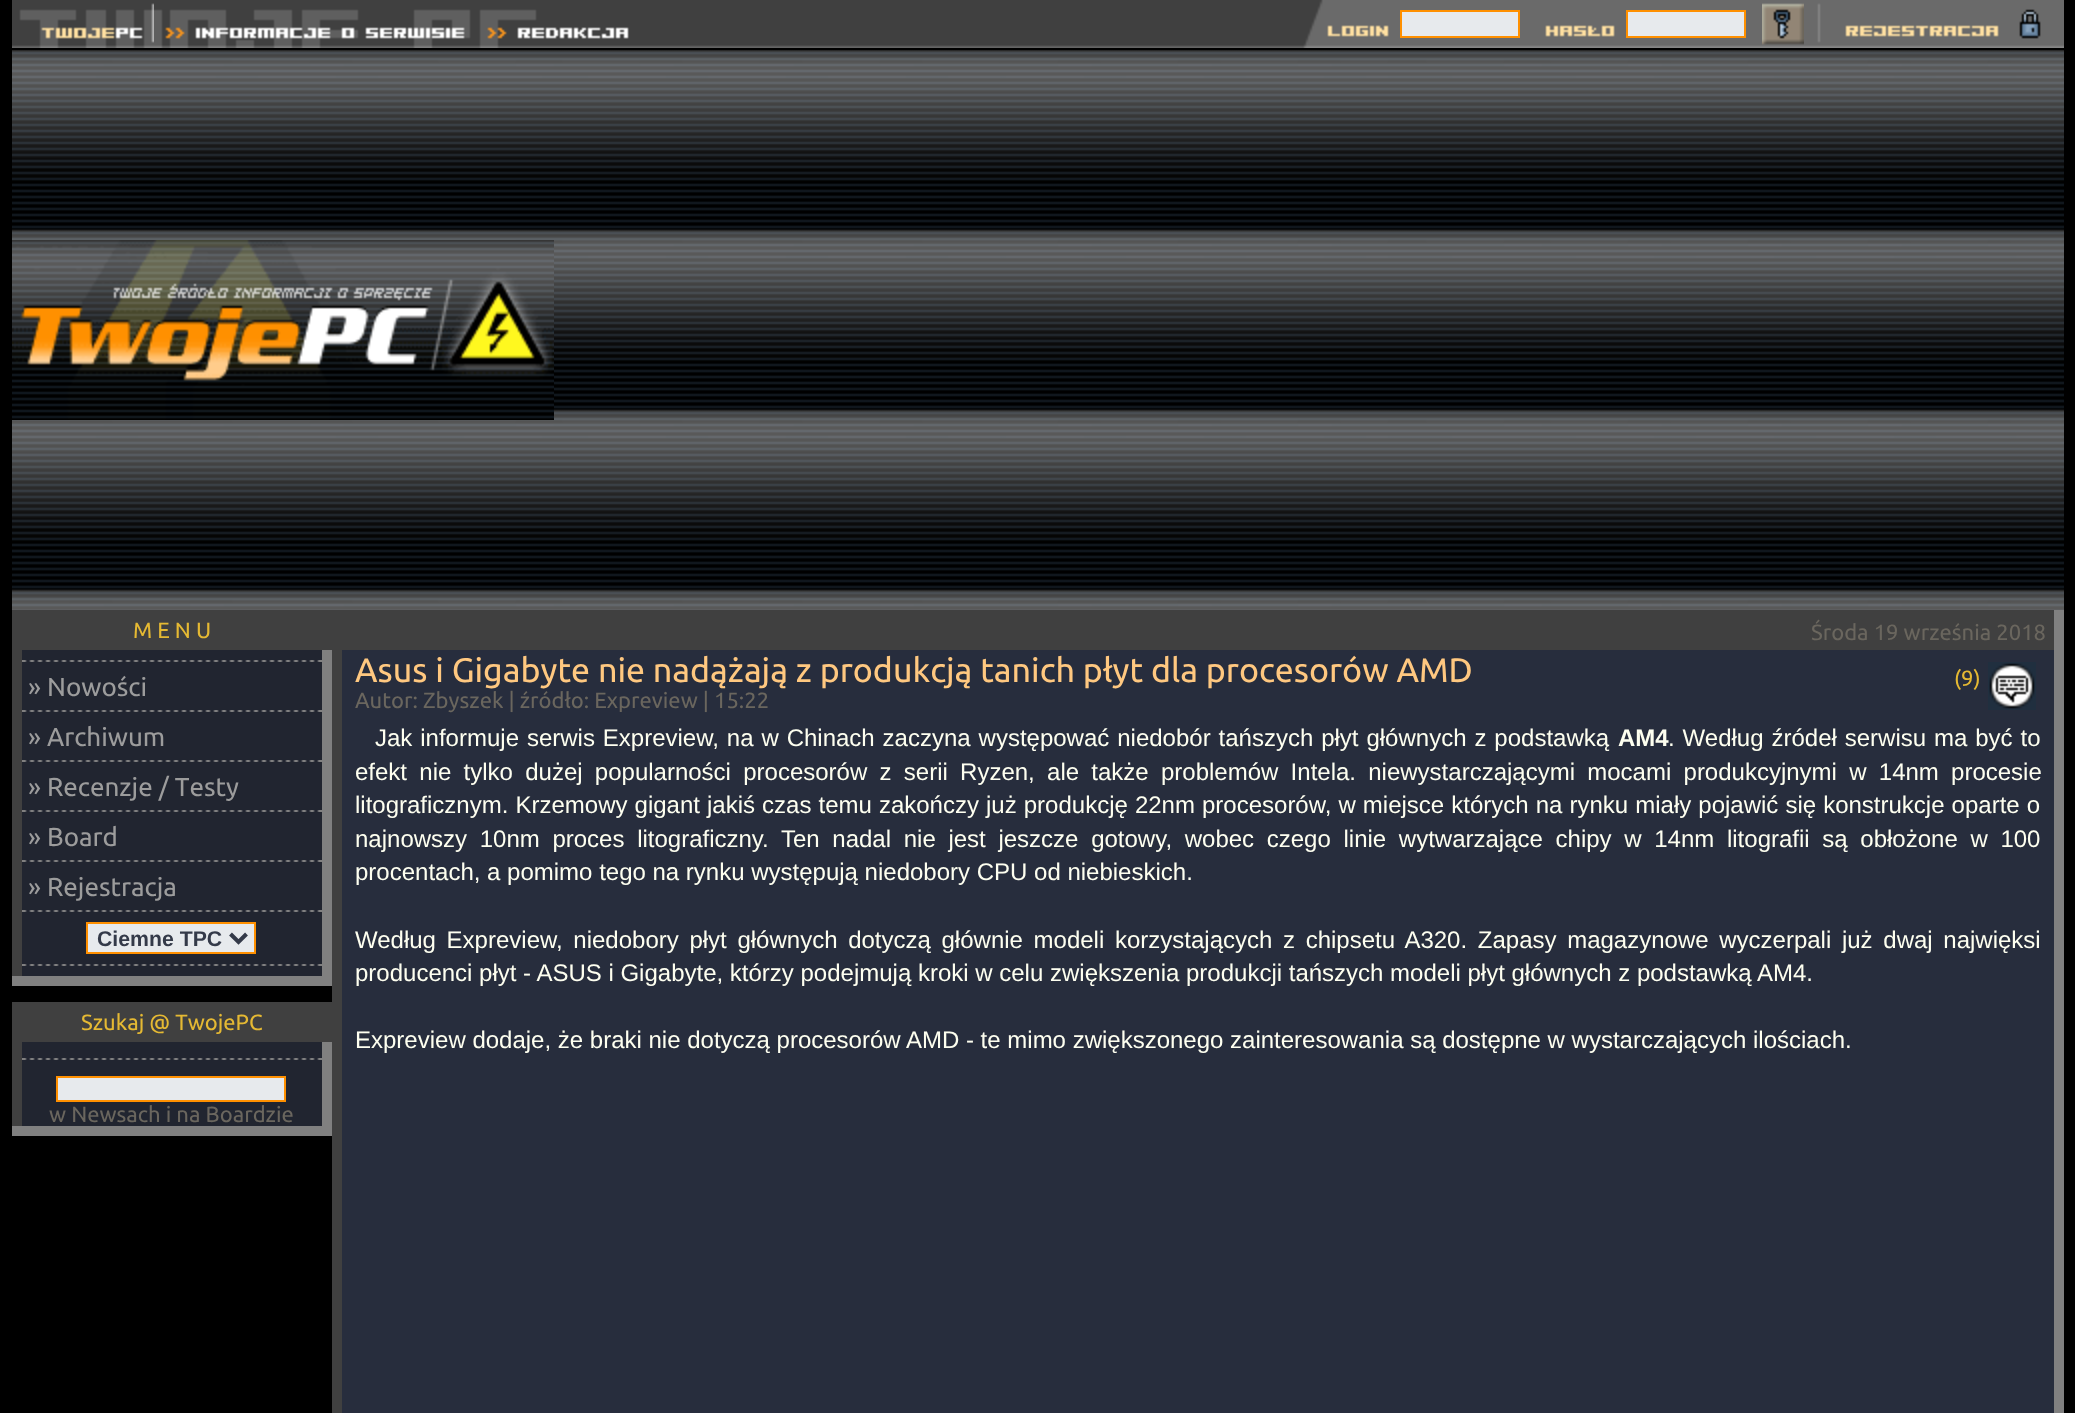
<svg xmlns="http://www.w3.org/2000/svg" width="2075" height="1413">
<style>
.a{font:22px Ubuntu;fill:#e5b933}
.b{font:26px Ubuntu;fill:#9c9c9c}
.c{font:bold 21.25px Liberation Sans;fill:#343a49}
.d{font:22px Ubuntu;fill:#6a665e}
.e{font:34px Ubuntu;fill:#ffc880}
.f{font:24px Liberation Sans;fill:#fefff0}
.g{font:bold 24px Liberation Sans;fill:#fefff0}
</style>
<rect width="100%" height="100%" fill="#000"/>
<image href="1.png" x="12" y="0" width="1286" height="48"/>
<image href="2.png" x="19" y="3" width="135" height="45"/>
<image href="3.png" x="154" y="9" width="317" height="39"/>
<image href="4.png" x="479" y="9" width="150" height="39"/>
<image href="5.png" x="1389" y="0" width="675" height="48"/>
<image href="6.png" x="1298" y="0" width="91" height="48"/>
<path fill="#e7eaed" stroke="#ff9000" stroke-width="2" d="M1401 11h118v26H1401z"/>
<image href="7.png" x="1545" y="25" width="70" height="12"/>
<path fill="#e7eaed" stroke="#ff9000" stroke-width="2" d="M1627 11h118v26H1627z"/>
<image href="8.png" x="1762" y="3" width="42" height="42"/>
<image href="9.png" x="1817" y="3" width="4" height="40"/>
<image href="10.png" x="1845" y="9" width="196" height="30"/>
<image href="11.png" x="12" y="50" width="988" height="560"/>
<image href="12.png" x="12" y="240" width="542" height="180"/>
<image href="13.png" x="1000" y="50" width="1064" height="560"/>
<path fill="#404040" d="M22 610h310v40H22z"/>
<path fill="#404040" d="M12 610h10v366H12z"/>
<path fill="#212530" d="M22 650h300v326H22z"/>
<image href="14.png" x="22" y="660" width="300" height="2"/>
<image href="14.png" x="22" y="710" width="300" height="2"/>
<image href="14.png" x="22" y="760" width="300" height="2"/>
<image href="14.png" x="22" y="810" width="300" height="2"/>
<image href="14.png" x="22" y="860" width="300" height="2"/>
<image href="14.png" x="22" y="910" width="300" height="2"/>
<path fill="#e7eaed" stroke="#ff9000" stroke-width="2" d="M87 923h168v30H87z"/>
<path fill="none" stroke="#343a49" stroke-width="4" d="M230.5 934l8 8l8-8"/>
<image href="14.png" x="22" y="964" width="300" height="2"/>
<path fill="#808080" d="M322 650h10v326H322z"/>
<path fill="#808080" d="M12 976h320v10H12z"/>
<path fill="#404040" d="M22 1002h310v40H22z"/>
<path fill="#404040" d="M12 1002h10v124H12z"/>
<path fill="#212530" d="M22 1042h300v84H22z"/>
<image href="14.png" x="22" y="1058" width="300" height="2"/>
<path fill="#e7eaed" stroke="#ff9000" stroke-width="2" d="M57 1077h228v24H57z"/>
<path fill="#808080" d="M322 1042h10v84H322z"/>
<path fill="#808080" d="M12 1126h320v10H12z"/>
<path fill="#404040" d="M342 610h1712v40H342z"/>
<path fill="#404040" d="M332 610h10v803H332z"/>
<path fill="#272d3d" d="M342 650h1712v763H342z"/>
<path fill="#808080" d="M2054 610h10v803H2054z"/>
<image href="15.png" x="1988" y="662" width="48" height="48"/>
<text class="a" x="133" y="638">M E N U</text>
<text class="b" x="28" y="696">» Nowości</text>
<text class="b" x="28" y="746">» Archiwum</text>
<text class="b" x="28" y="796">» Recenzje / Testy</text>
<text class="b" x="28" y="846">» Board</text>
<text class="b" x="28" y="896">» Rejestracja</text>
<text class="c" x="97" y="946">Ciemne TPC</text>
<text class="a" x="81" y="1030">Szukaj @ TwojePC</text>
<text class="d" x="49" y="1122">w Newsach i na Boardzie</text>
<text class="d" x="1811" y="640">Środa 19 września 2018</text>
<text class="e" x="355" y="682">Asus i Gigabyte nie nadążają z produkcją tanich płyt dla procesorów AMD</text>
<text class="d" x="355" y="708">Autor: Zbyszek | źródło: Expreview | 15:22</text>
<text class="a" x="1954" y="686">(9)</text>
<text class="f" x="375" y="746" word-spacing="1.25">Jak informuje serwis Expreview, na w Chinach zaczyna występować niedobór tańszych płyt głównych z podstawką</text>
<text class="g" x="1618" y="746">AM4</text>
<text class="f" x="1668" y="746" word-spacing="1.25">. Według źródeł serwisu ma być to</text>
<text class="f" x="355" y="780" word-spacing="5.6">efekt nie tylko dużej popularności procesorów z serii Ryzen, ale także problemów Intela. niewystarczającymi mocami produkcyjnymi w 14nm procesie</text>
<text class="f" x="355" y="813" word-spacing="0.4">litograficznym. Krzemowy gigant jakiś czas temu zakończy już produkcję 22nm procesorów, w miejsce których na rynku miały pojawić się konstrukcje oparte o</text>
<text class="f" x="355" y="847" word-spacing="6">najnowszy 10nm proces litograficzny. Ten nadal nie jest jeszcze gotowy, wobec czego linie wytwarzające chipy w 14nm litografii są obłożone w 100</text>
<text class="f" x="355" y="880">procentach, a pomimo tego na rynku występują niedobory CPU od niebieskich.</text>
<text class="f" x="355" y="948" word-spacing="4">Według Expreview, niedobory płyt głównych dotyczą głównie modeli korzystających z chipsetu A320. Zapasy magazynowe wyczerpali już dwaj najwięksi</text>
<text class="f" x="355" y="981">producenci płyt - ASUS i Gigabyte, którzy podejmują kroki w celu zwiększenia produkcji tańszych modeli płyt głównych z podstawką AM4.</text>
<text class="f" x="355" y="1048">Expreview dodaje, że braki nie dotyczą procesorów AMD - te mimo zwiększonego zainteresowania są dostępne w wystarczających ilościach.</text>
</svg>
